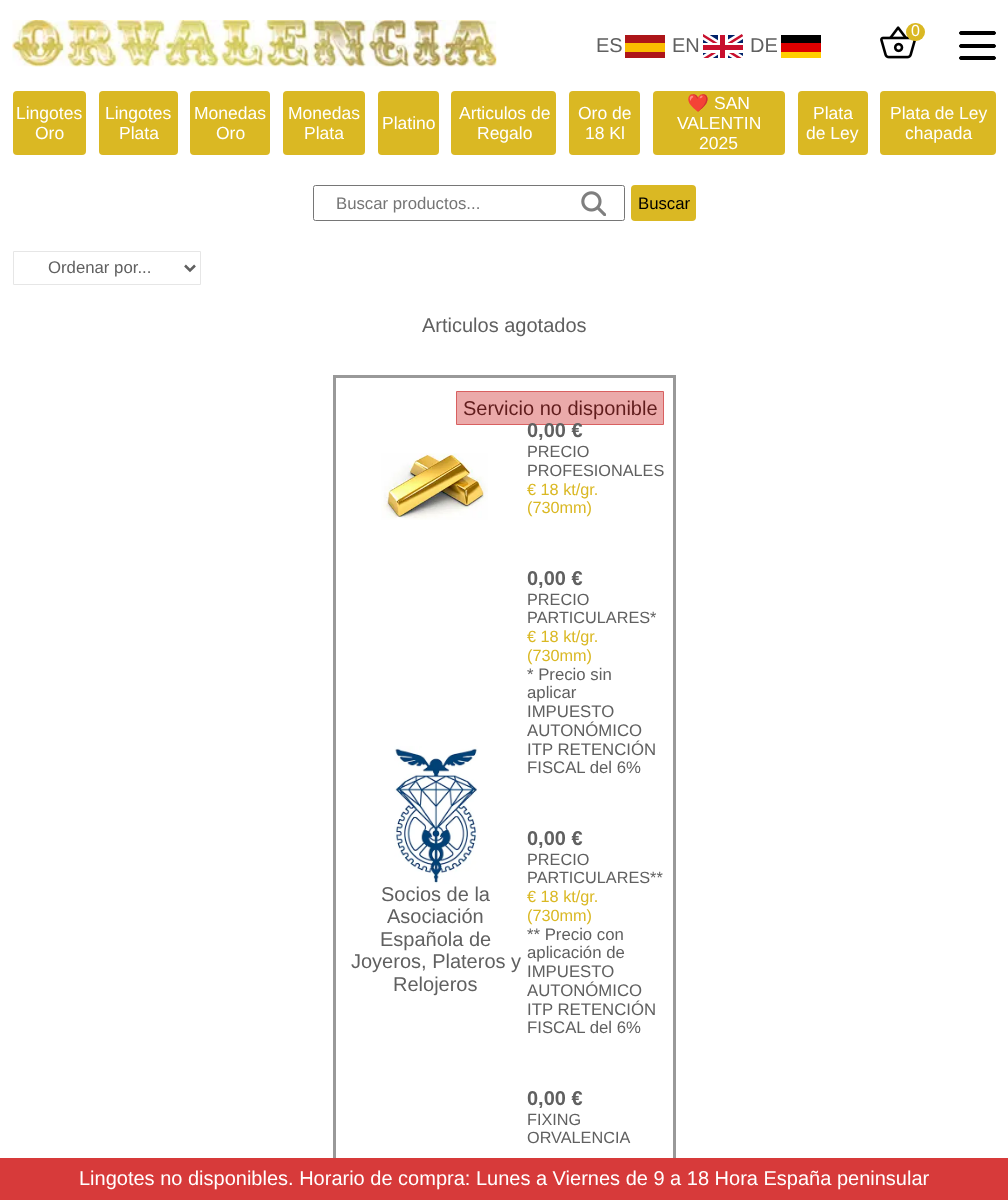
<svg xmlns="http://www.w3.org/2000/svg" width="1008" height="1200">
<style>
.a{font:16px Liberation Sans;fill:#fff}
.b{font:20px Liberation Sans;fill:#606060}
.c{font:17.5px Liberation Sans;fill:#fff}
.d{font:17.5px Noto Color Emoji;fill:#fff}
.e{font:16.75px Liberation Sans;fill:#757575}
.f{font:16.75px Liberation Sans;fill:#000}
.g{font:16.75px Liberation Sans;fill:#606060}
.h{font:20px Liberation Sans;fill:#611d1d}
.i{font:bold 20px Liberation Sans;fill:#606060}
.j{font:16.25px Liberation Sans;fill:#606060}
.k{font:16.25px Liberation Sans;fill:#dab823}
.l{font:20px Liberation Sans;fill:#fff}
</style>
<defs>
<clipPath id="clip1"><path d="M703 28h40v30H703z"/></clipPath>
</defs>
<rect width="100%" height="100%" fill="#fff"/>
<image href="1.png" x="12" y="20" width="485" height="47"/>
<image href="2.png" x="880" y="26" width="37" height="33"/>
<rect fill="#dab823" x="906" y="23" width="19" height="18" rx="9"/>
<rect fill="#000" stroke="#000" x="959.5" y="31.5" width="36" height="3" rx="1.5"/>
<rect fill="#000" stroke="#000" x="959.5" y="44.5" width="36" height="3" rx="1.5"/>
<rect fill="#000" stroke="#000" x="959.5" y="56.5" width="36" height="3" rx="1.5"/>
<path fill="#ad1519" d="M625 35h40v8H625z"/>
<path fill="#fabd00" d="M625 43h40v9H625z"/>
<path fill="#ad1519" d="M625 52h40v6H625z"/>
<path fill="#012169" d="M703 35h40v23H703z"/>
<g clip-path="url(#clip1)">
<path fill="none" stroke="#fff" stroke-width="7.5" d="M702.5 35l40 25m-40 0l40-25"/>
<path fill="none" stroke="#c8102e" stroke-width="2.5" d="M702.5 35l40 25m-40 0l40-25"/>
</g>
<path fill="#fff" d="M718 35h10v23H718z"/>
<path fill="#fff" d="M703 43h40v10H703z"/>
<path fill="#c8102e" d="M720 35h5v23H720z"/>
<path fill="#c8102e" d="M703 45h40v5H703z"/>
<path fill="#000" d="M781 35h40v8H781z"/>
<path fill="#d00" d="M781 43h40v9H781z"/>
<path fill="#ffce00" d="M781 52h40v6H781z"/>
<rect fill="#dab823" x="13" y="91" width="73" height="64" rx="4"/>
<rect fill="#dab823" x="99" y="91" width="79" height="64" rx="4"/>
<rect fill="#dab823" x="190" y="91" width="80" height="64" rx="4"/>
<rect fill="#dab823" x="283" y="91" width="82" height="64" rx="4"/>
<rect fill="#dab823" x="378" y="91" width="61" height="64" rx="4"/>
<rect fill="#dab823" x="451" y="91" width="105" height="64" rx="4"/>
<rect fill="#dab823" x="569" y="91" width="71" height="64" rx="4"/>
<rect fill="#dab823" x="653" y="91" width="132" height="64" rx="4"/>
<rect fill="#dab823" x="798" y="91" width="70" height="64" rx="4"/>
<rect fill="#dab823" x="880" y="91" width="116" height="64" rx="4"/>
<rect fill="none" stroke="#767676" x="313.5" y="185.5" width="311" height="35" rx="2"/>
<image href="3.png" x="581" y="191" width="25" height="25"/>
<rect fill="#dab823" x="631" y="185" width="65" height="36" rx="4"/>
<path fill="none" stroke="#e6e6e6" d="M13.5 251.5h187v33H13.5z"/>
<path fill="none" stroke="#606060" stroke-width="2.5" d="M185 265.5l5 5l5-5"/>
<path fill="none" stroke="#999" stroke-width="3" d="M334.5 376.5h340v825H334.5z"/>
<path fill="#ebaaaa" stroke="#d86060" d="M456.5 391.5h207v33H456.5z"/>
<image href="4.png" x="381" y="453" width="107" height="67"/>
<image href="5.png" x="394" y="746" width="84" height="138"/>
<path fill="#d73a3a" d="M0 1158h1008v42H0z"/>
<text class="a" x="911" y="36">0</text>
<text class="b" x="596" y="52">ES</text>
<text class="b" x="672" y="52">EN</text>
<text class="b" x="750" y="52">DE</text>
<text class="c" x="16" y="119">Lingotes</text>
<text class="c" x="35" y="139">Oro</text>
<text class="c" x="105" y="119">Lingotes</text>
<text class="c" x="119" y="139">Plata</text>
<text class="c" x="194" y="119">Monedas</text>
<text class="c" x="216" y="139">Oro</text>
<text class="c" x="288" y="119">Monedas</text>
<text class="c" x="304" y="139">Plata</text>
<text class="c" x="382" y="129">Platino</text>
<text class="c" x="459" y="119">Articulos de</text>
<text class="c" x="477" y="139">Regalo</text>
<text class="c" x="578" y="119">Oro de</text>
<text class="c" x="585" y="139">18 Kl</text>
<text class="d" x="687" y="109">❤️</text>
<text class="c" x="714" y="109">SAN</text>
<text class="c" x="677" y="129">VALENTIN</text>
<text class="c" x="699" y="149">2025</text>
<text class="c" x="813" y="119">Plata</text>
<text class="c" x="806" y="139">de Ley</text>
<text class="c" x="890" y="119">Plata de Ley</text>
<text class="c" x="905" y="139">chapada</text>
<text class="e" x="336" y="209">Buscar productos...</text>
<text class="f" x="638" y="209">Buscar</text>
<text class="g" x="48" y="273">Ordenar por...</text>
<text class="b" x="422" y="332">Articulos agotados</text>
<text class="h" x="463" y="415">Servicio no disponible</text>
<text class="b" x="381" y="901">Socios de la</text>
<text class="b" x="387" y="923">Asociación</text>
<text class="b" x="380" y="946">Española de</text>
<text class="b" x="351" y="968">Joyeros, Plateros y</text>
<text class="b" x="393" y="991">Relojeros</text>
<text class="i" x="527" y="437">0,00 €</text>
<text class="j" x="527" y="457">PRECIO</text>
<text class="j" x="527" y="476">PROFESIONALES</text>
<text class="k" x="527" y="495">€ 18 kt/gr.</text>
<text class="k" x="527" y="513">(730mm)</text>
<text class="i" x="527" y="585">0,00 €</text>
<text class="j" x="527" y="605">PRECIO</text>
<text class="j" x="527" y="623">PARTICULARES*</text>
<text class="k" x="527" y="642">€ 18 kt/gr.</text>
<text class="k" x="527" y="661">(730mm)</text>
<text class="g" x="527" y="680">* Precio sin</text>
<text class="g" x="527" y="698">aplicar</text>
<text class="g" x="527" y="717">IMPUESTO</text>
<text class="g" x="527" y="736">AUTONÓMICO</text>
<text class="g" x="527" y="755">ITP RETENCIÓN</text>
<text class="g" x="527" y="773">FISCAL del 6%</text>
<text class="i" x="527" y="845">0,00 €</text>
<text class="j" x="527" y="865">PRECIO</text>
<text class="j" x="527" y="883">PARTICULARES**</text>
<text class="k" x="527" y="902">€ 18 kt/gr.</text>
<text class="k" x="527" y="921">(730mm)</text>
<text class="g" x="527" y="940">** Precio con</text>
<text class="g" x="527" y="958">aplicación de</text>
<text class="g" x="527" y="977">IMPUESTO</text>
<text class="g" x="527" y="996">AUTONÓMICO</text>
<text class="g" x="527" y="1015">ITP RETENCIÓN</text>
<text class="g" x="527" y="1033">FISCAL del 6%</text>
<text class="i" x="527" y="1105">0,00 €</text>
<text class="j" x="527" y="1125">FIXING</text>
<text class="j" x="527" y="1143">ORVALENCIA</text>
<text class="l" x="79" y="1185">Lingotes no disponibles. Horario de compra: Lunes a Viernes de 9 a 18 Hora España peninsular</text>
</svg>
